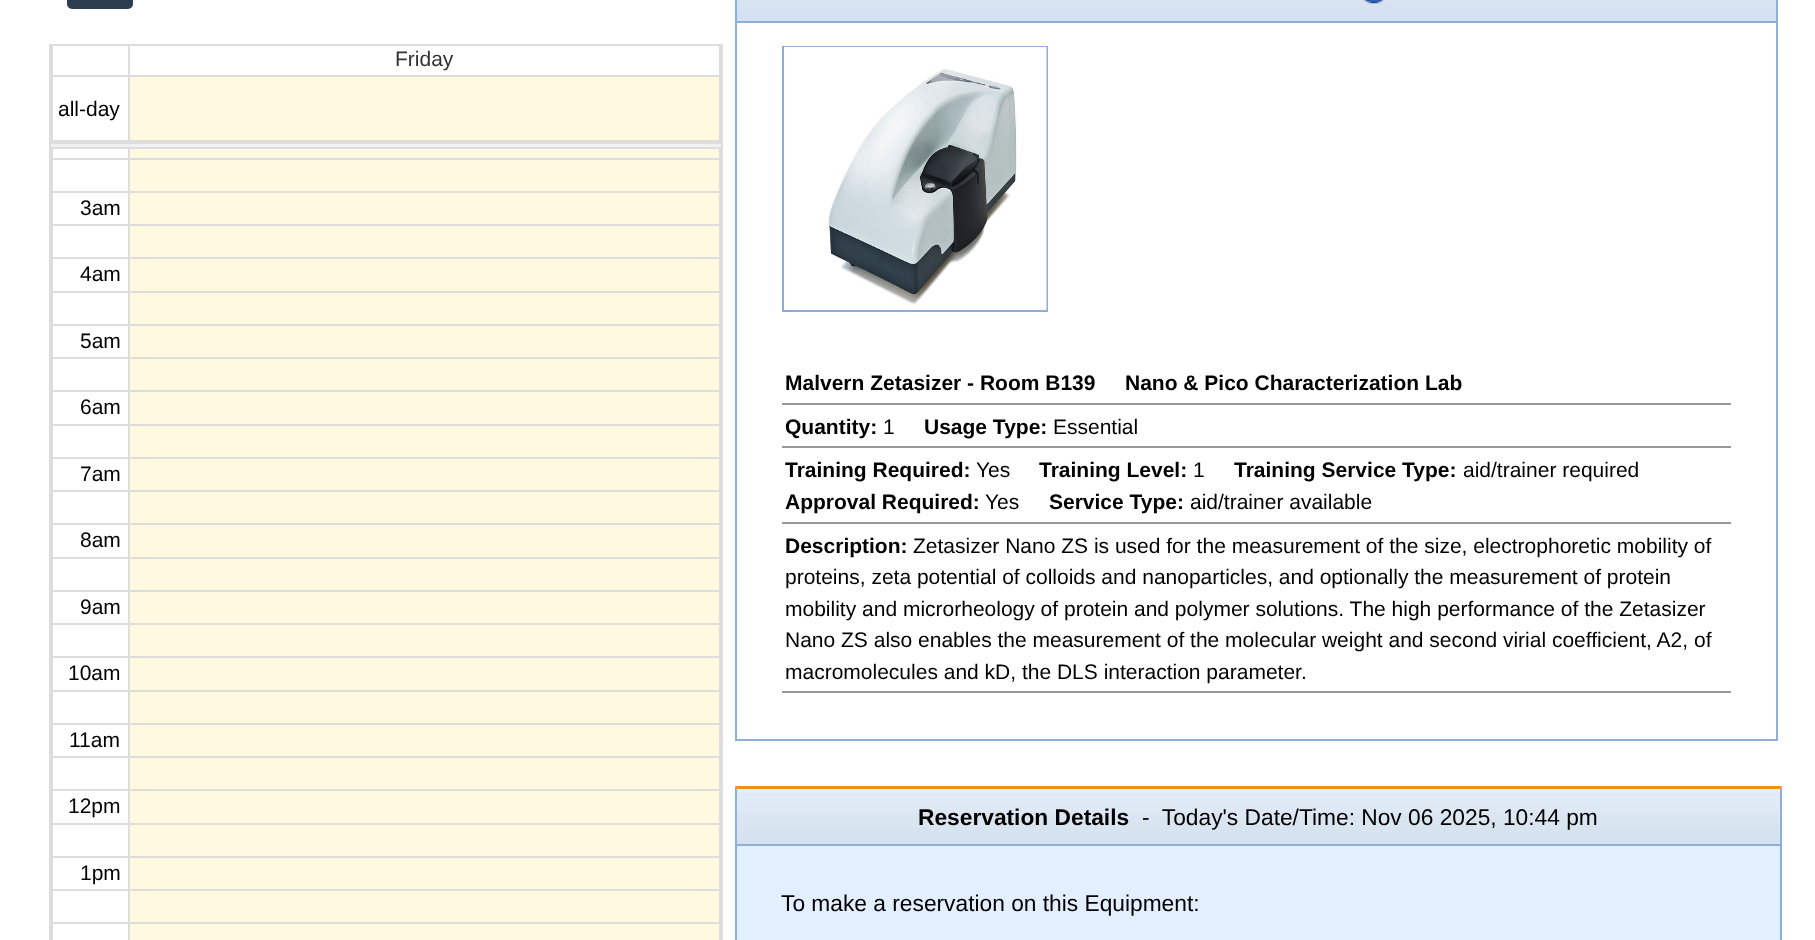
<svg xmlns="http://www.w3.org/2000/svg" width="1815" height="940">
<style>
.a{font:21px Liberation Sans;fill:#333}
.b{font:21px Liberation Sans;fill:#000}
.c{font:bold 21px Liberation Sans;fill:#000}
.d{font:bold 22.75px Liberation Sans;fill:#000}
.e{font:22.75px Liberation Sans;fill:#000}
</style>
<rect width="100%" height="100%" fill="#fff"/>
<rect fill="#2c3e50" stroke="#2c3e50" stroke-width="2" x="68" y="-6" width="64" height="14" rx="4"/>
<path fill="#ddd" d="M49 44h674v2H49z"/>
<path fill="#ddd" d="M49 44h2v896H49z"/>
<path fill="#ddd" d="M721 46h2v894H721z"/>
<path fill="#ddd" d="M719 46h2v96H719z"/>
<path fill="#ddd" d="M128 75h593v2H128z"/>
<path fill="#ddd" d="M128 46h2v31H128z"/>
<path fill="#ddd" d="M51 75h79v2H51z"/>
<path fill="#ddd" d="M51 46h2v31H51z"/>
<path fill="#ddd" d="M51 142h672v2H51z"/>
<path fill="#ddd" d="M128 140h593v2H128z"/>
<path fill="#ddd" d="M128 77h2v65H128z"/>
<path fill="#ddd" d="M51 140h79v2H51z"/>
<path fill="#ddd" d="M51 77h2v65H51z"/>
<path fill="#fffadf" d="M130 77h589v63H130z"/>
<path fill="#f1f1f1" d="M51 144h670v3H51z"/>
<path fill="#ddd" d="M51 147h672v2H51z"/>
<path fill="#ddd" d="M51 149h2v791H51z"/>
<path fill="#fffadf" d="M130 149h589v791H130z"/>
<path fill="#ddd" d="M719 149h2v791H719z"/>
<path fill="#ddd" d="M128 149h2v791H128z"/>
<path fill="#ddd" d="M51 158h670v2H51z"/>
<path fill="#ddd" d="M51 191h670v2H51z"/>
<path fill="#ddd" d="M51 224h670v2H51z"/>
<path fill="#ddd" d="M51 257h670v2H51z"/>
<path fill="#ddd" d="M51 291h670v2H51z"/>
<path fill="#ddd" d="M51 324h670v2H51z"/>
<path fill="#ddd" d="M51 357h670v2H51z"/>
<path fill="#ddd" d="M51 390h670v2H51z"/>
<path fill="#ddd" d="M51 424h670v2H51z"/>
<path fill="#ddd" d="M51 457h670v2H51z"/>
<path fill="#ddd" d="M51 490h670v2H51z"/>
<path fill="#ddd" d="M51 523h670v2H51z"/>
<path fill="#ddd" d="M51 557h670v2H51z"/>
<path fill="#ddd" d="M51 590h670v2H51z"/>
<path fill="#ddd" d="M51 623h670v2H51z"/>
<path fill="#ddd" d="M51 656h670v2H51z"/>
<path fill="#ddd" d="M51 690h670v2H51z"/>
<path fill="#ddd" d="M51 723h670v2H51z"/>
<path fill="#ddd" d="M51 756h670v2H51z"/>
<path fill="#ddd" d="M51 789h670v2H51z"/>
<path fill="#ddd" d="M51 823h670v2H51z"/>
<path fill="#ddd" d="M51 856h670v2H51z"/>
<path fill="#ddd" d="M51 889h670v2H51z"/>
<path fill="#ddd" d="M51 922h670v2H51z"/>
<image href="1.png" x="737" y="0" width="1039" height="21"/>
<path fill="none" stroke="#8daed9" stroke-width="2" d="M736 -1h1041v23H736z"/>
<image href="2.png" x="1363" y="0" width="22" height="4"/>
<path fill="#8daed9" d="M1776 23h2v717H1776z"/>
<path fill="#8daed9" d="M735 739h1043v2H735z"/>
<path fill="#8daed9" d="M735 23h2v717H735z"/>
<path fill="none" stroke="#8dacd9" stroke-width="2" d="M783 47h264v264H783z"/>
<image href="3.png" x="784" y="47" width="263" height="263"/>
<path fill="#999" d="M782 403h949v2H782z"/>
<path fill="#999" d="M782 446h949v2H782z"/>
<path fill="#999" d="M782 522h949v2H782z"/>
<path fill="#999" d="M782 691h949v2H782z"/>
<path fill="#e3efff" d="M737 789h1043v151H737z"/>
<path fill="#ee9311" d="M735 786h1047l-2 3h-1043z"/>
<path fill="#8daed9" d="M1782 786v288l-2-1v-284z"/>
<path fill="#8daed9" d="M735 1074v-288l2 3v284z"/>
<image href="4.png" x="736" y="792" width="1044" height="53"/>
<path fill="#8daed9" d="M737 844h1043v2H737z"/>
<text class="a" x="395" y="66">Friday</text>
<text class="b" x="58" y="116">all-day</text>
<text class="b" x="80" y="215">3am</text>
<text class="b" x="80" y="281">4am</text>
<text class="b" x="80" y="348">5am</text>
<text class="b" x="80" y="414">6am</text>
<text class="b" x="80" y="481">7am</text>
<text class="b" x="80" y="547">8am</text>
<text class="b" x="80" y="614">9am</text>
<text class="b" x="68" y="680">10am</text>
<text class="b" x="69" y="747">11am</text>
<text class="b" x="68" y="813">12pm</text>
<text class="b" x="80" y="880">1pm</text>
<text class="c" x="785" y="390">Malvern Zetasizer - Room B139</text>
<text class="c" x="1125" y="390">Nano &amp; Pico Characterization Lab</text>
<text class="c" x="785" y="434">Quantity:</text>
<text class="b" x="883" y="434">1</text>
<text class="c" x="924" y="434">Usage Type:</text>
<text class="b" x="1053" y="434">Essential</text>
<text class="c" x="785" y="477">Training Required:</text>
<text class="b" x="976" y="477">Yes</text>
<text class="c" x="1039" y="477">Training Level:</text>
<text class="b" x="1193" y="477">1</text>
<text class="c" x="1234" y="477">Training Service Type:</text>
<text class="b" x="1463" y="477">aid/trainer required</text>
<text class="c" x="785" y="509">Approval Required:</text>
<text class="b" x="985" y="509">Yes</text>
<text class="c" x="1049" y="509">Service Type:</text>
<text class="b" x="1190" y="509">aid/trainer available</text>
<text class="c" x="785" y="553">Description:</text>
<text class="b" x="913" y="553">Zetasizer Nano ZS is used for the measurement of the size, electrophoretic mobility of</text>
<text class="b" x="785" y="584">proteins, zeta potential of colloids and nanoparticles, and optionally the measurement of protein</text>
<text class="b" x="785" y="616">mobility and microrheology of protein and polymer solutions. The high performance of the Zetasizer</text>
<text class="b" x="785" y="647">Nano ZS also enables the measurement of the molecular weight and second virial coefficient, A2, of</text>
<text class="b" x="785" y="679">macromolecules and kD, the DLS interaction parameter.</text>
<text class="d" x="918" y="825">Reservation Details</text>
<text class="e" xml:space="preserve" x="1142" y="825">-  Today's Date/Time: Nov 06 2025, 10:44 pm</text>
<text class="e" x="781" y="911">To make a reservation on this Equipment:</text>
</svg>
